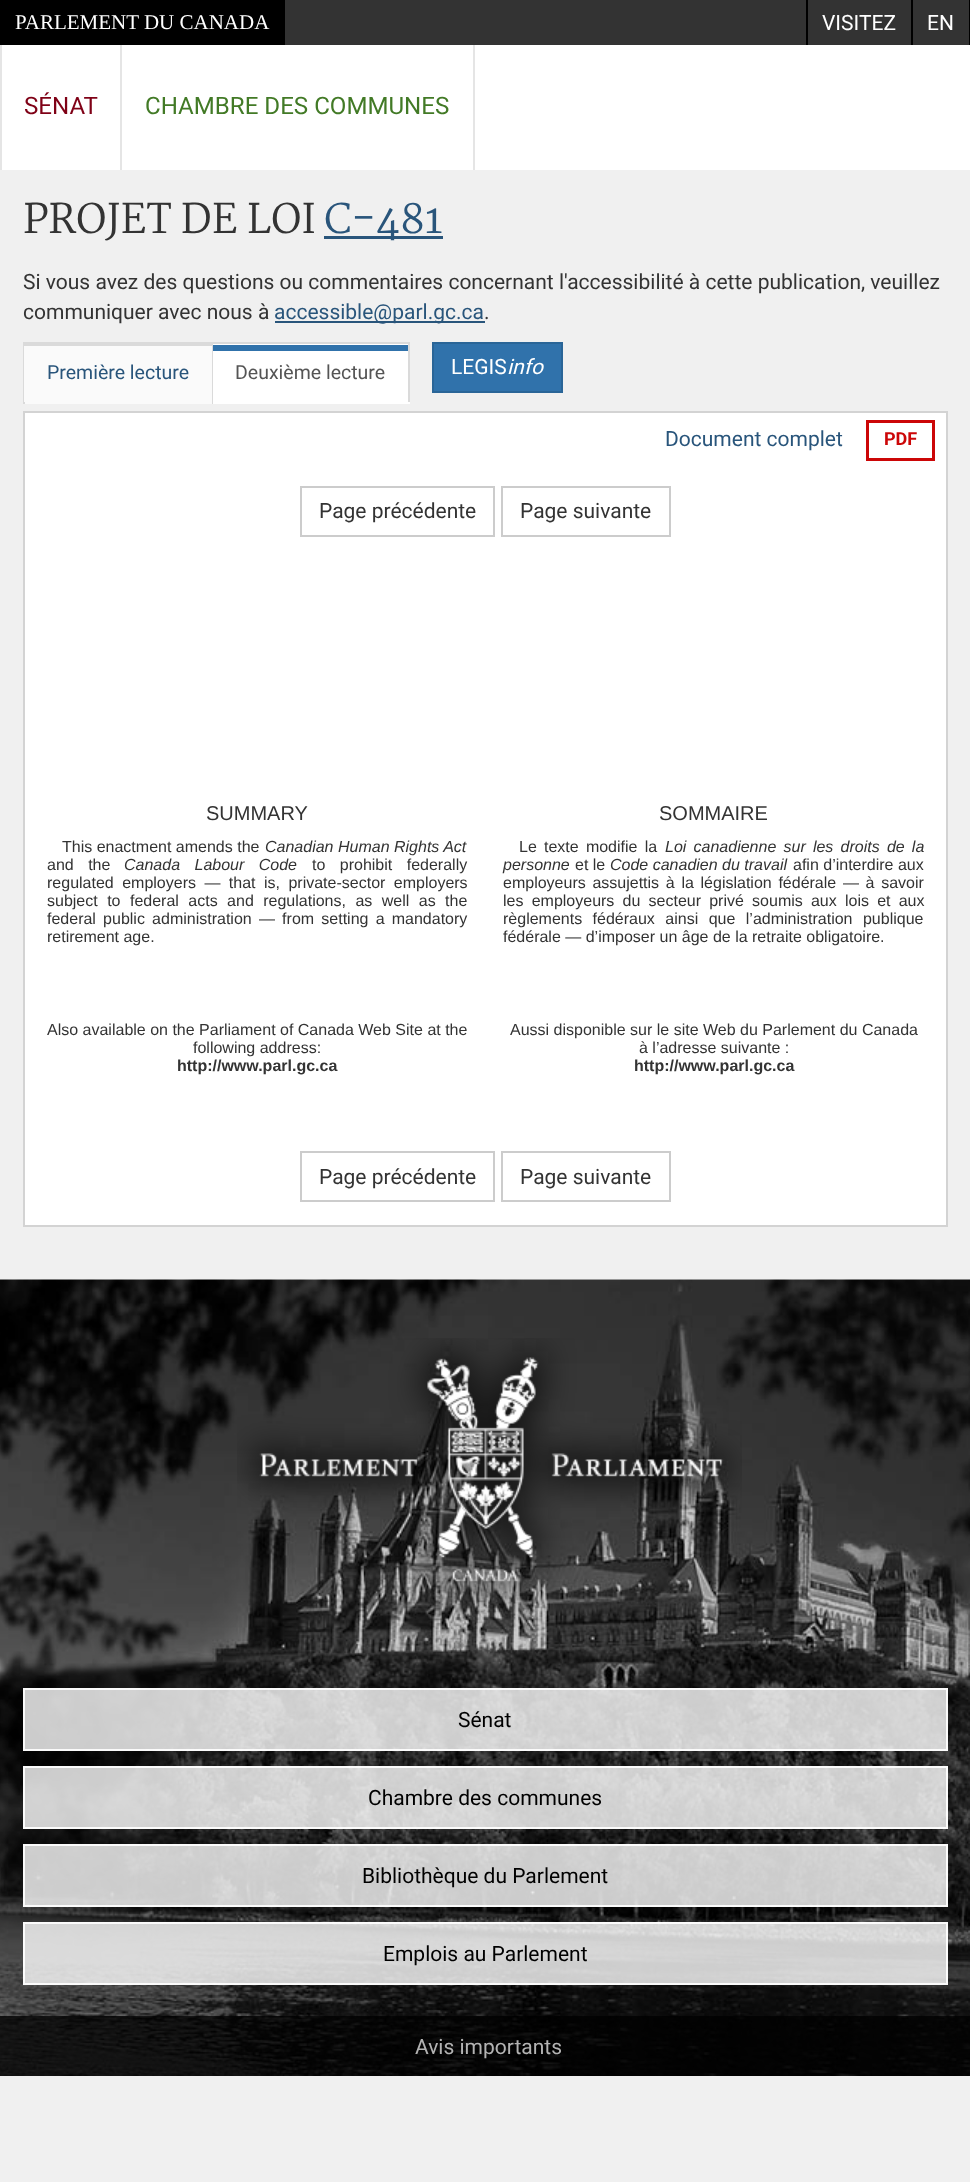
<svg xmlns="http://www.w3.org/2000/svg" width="970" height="2182">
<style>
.a{font:21px Liberation Serif;fill:#fff}
.b{font:21px Roboto;fill:#fff}
.c{font:24.1px Roboto;fill:#7f0116}
.d{font:24.1px Roboto;fill:#427a26}
.e{font:40px Martel;fill:#333}
.f{font:40px Martel;fill:#29557b}
.g{font:21px Roboto;fill:#333}
.h{font:21px Roboto;fill:#29557b}
.i{font:19.5px Roboto;fill:#29557b}
.j{font:19.5px Roboto;fill:#555}
.k{font:italic 21px Roboto;fill:#fff}
.l{font:bold 18px Roboto;fill:#cc0607}
.m{font:20px Liberation Sans;fill:#333}
.n{font:16px Liberation Sans;fill:#333}
.o{font:italic 16px Liberation Sans;fill:#333}
.p{font:bold 16px Liberation Sans;fill:#333}
.q{font:21px Roboto;fill:#000}
.r{font:21px Roboto;fill:#b3b3b3}
</style>
<rect width="100%" height="100%" fill="#f0f0f0"/>
<path fill="#333" d="M285 0h684v45H285z"/>
<path fill="#000" d="M0 0h285v45H0z"/>
<path fill="#000" d="M806 0h2v45H806z"/>
<path fill="#000" d="M969 0h1v45H969z"/>
<path fill="#000" d="M911 0h2v45H911z"/>
<path fill="#fff" d="M2 45h968v125H2z"/>
<path fill="#e5e5e5" d="M0 45h2v125H0z"/>
<path fill="#e5e5e5" d="M473 45h2v125H473z"/>
<path fill="#e5e5e5" d="M120 45h2v125H120z"/>
<path fill="#29557b" d="M324 236h119v3H324z"/>
<path fill="#29557b" d="M275 321h210v2H275z"/>
<path fill="#fafafa" d="M25 402h187v2H25z"/>
<path fill="#dadada" d="M23 342h387v2H23z"/>
<path fill="#dadada" d="M212 342h1v62H212z"/>
<path fill="#dadada" d="M23 342h2v62H23z"/>
<path fill="#fafafa" d="M24 346h188v56H24z"/>
<path fill="#dadada" d="M24 344h188v2H24z"/>
<path fill="#fff" d="M213 344h195v58H213z"/>
<path fill="#dadada" d="M408 342h2v62H408z"/>
<path fill="#fff" d="M213 402h197v2H213z"/>
<path fill="#3072ab" d="M213 345h195v6H213z"/>
<path fill="#3072ab" stroke="#2a6597" stroke-width="2" d="M433 343h129v49H433z"/>
<path fill="#fff" stroke="#d3d3d3" stroke-width="2" d="M24 412h923v814H24z"/>
<path fill="none" stroke="#cc0607" stroke-width="3" d="M867.5 421.5h66v38H867.5z"/>
<path fill="none" stroke="#ccc" stroke-width="2" d="M301 487h193v49H301z"/>
<path fill="none" stroke="#ccc" stroke-width="2" d="M502 487h168v49H502z"/>
<path fill="none" stroke="#ccc" stroke-width="2" d="M301 1152h193v49H301z"/>
<path fill="none" stroke="#ccc" stroke-width="2" d="M502 1152h168v49H502z"/>
<image href="1.png" x="0" y="1279" width="970" height="797"/>
<image href="2.png" x="237" y="1338" width="505" height="274"/>
<path fill="#ffffffcc" d="M23 1688h925v63H23z"/>
<path fill="none" stroke="#ffffffe6" stroke-width="2" d="M24 1689h923v61H24z"/>
<path fill="#ffffffcc" d="M23 1766h925v63H23z"/>
<path fill="none" stroke="#ffffffe6" stroke-width="2" d="M24 1767h923v61H24z"/>
<path fill="#ffffffcc" d="M23 1844h925v63H23z"/>
<path fill="none" stroke="#ffffffe6" stroke-width="2" d="M24 1845h923v61H24z"/>
<path fill="#ffffffcc" d="M23 1922h925v63H23z"/>
<path fill="none" stroke="#ffffffe6" stroke-width="2" d="M24 1923h923v61H24z"/>
<path fill="#000000cc" d="M0 2016h970v60H0z"/>
<text class="a" x="15" y="29">PARLEMENT DU CANADA</text>
<text class="b" x="822" y="30">VISITEZ</text>
<text class="b" x="927" y="30">EN</text>
<text class="c" x="24" y="114">SÉNAT</text>
<text class="d" x="145" y="114">CHAMBRE DES COMMUNES</text>
<text class="e" x="23" y="233">PROJET DE LOI</text>
<text class="f" x="324" y="233">C-481</text>
<text class="g" x="23" y="289">Si vous avez des questions ou commentaires concernant l'accessibilité à cette publication, veuillez</text>
<text class="g" x="23" y="319">communiquer avec nous à</text>
<text class="h" x="274" y="319">accessible@parl.gc.ca</text>
<text class="g" x="484" y="319">.</text>
<text class="i" x="47" y="379">Première lecture</text>
<text class="j" x="235" y="379">Deuxième lecture</text>
<text class="b" x="451" y="374">LEGIS</text>
<text class="k" x="507" y="374">info</text>
<text class="h" x="665" y="446">Document complet</text>
<text class="l" x="884" y="445">PDF</text>
<text class="g" x="319" y="518">Page précédente</text>
<text class="g" x="520" y="518">Page suivante</text>
<text class="m" x="206" y="820">SUMMARY</text>
<text class="n" x="62" y="852">This enactment amends the</text>
<text class="o" x="265" y="852">Canadian Human Rights Act</text>
<text class="n" x="47" y="870" word-spacing="10">and the</text>
<text class="o" x="124" y="870" word-spacing="10">Canada Labour Code</text>
<text class="n" x="312" y="870" word-spacing="10">to prohibit federally</text>
<text class="n" x="47" y="888" word-spacing="4">regulated employers — that is, private-sector employers</text>
<text class="n" x="47" y="906" word-spacing="5">subject to federal acts and regulations, as well as the</text>
<text class="n" x="47" y="924" word-spacing="2.75">federal public administration — from setting a mandatory</text>
<text class="n" x="47" y="942">retirement age.</text>
<text class="m" x="659" y="820">SOMMAIRE</text>
<text class="n" x="519" y="852" word-spacing="2.75">Le texte modifie la</text>
<text class="o" x="665" y="852" word-spacing="2.75">Loi canadienne sur les droits de la</text>
<text class="o" x="503" y="870">personne</text>
<text class="n" x="575" y="870">et le</text>
<text class="o" x="610" y="870">Code canadien du travail</text>
<text class="n" x="793" y="870">afin d’interdire aux</text>
<text class="n" x="503" y="888" word-spacing="2.25">employeurs assujettis à la législation fédérale — à savoir</text>
<text class="n" x="503" y="906" word-spacing="3.75">les employeurs du secteur privé soumis aux lois et aux</text>
<text class="n" x="503" y="924" word-spacing="6">règlements fédéraux ainsi que l’administration publique</text>
<text class="n" x="503" y="942">fédérale — d’imposer un âge de la retraite obligatoire.</text>
<text class="n" x="47" y="1035">Also available on the Parliament of Canada Web Site at the</text>
<text class="n" x="193" y="1053">following address:</text>
<text class="p" x="177" y="1071">http://www.parl.gc.ca</text>
<text class="n" x="510" y="1035">Aussi disponible sur le site Web du Parlement du Canada</text>
<text class="n" x="639" y="1053">à l’adresse suivante :</text>
<text class="p" x="634" y="1071">http://www.parl.gc.ca</text>
<text class="g" x="319" y="1184">Page précédente</text>
<text class="g" x="520" y="1184">Page suivante</text>
<text class="q" x="458" y="1727">Sénat</text>
<text class="q" x="368" y="1805">Chambre des communes</text>
<text class="q" x="362" y="1883">Bibliothèque du Parlement</text>
<text class="q" x="383" y="1961">Emplois au Parlement</text>
<text class="r" x="415" y="2054">Avis importants</text>
</svg>
